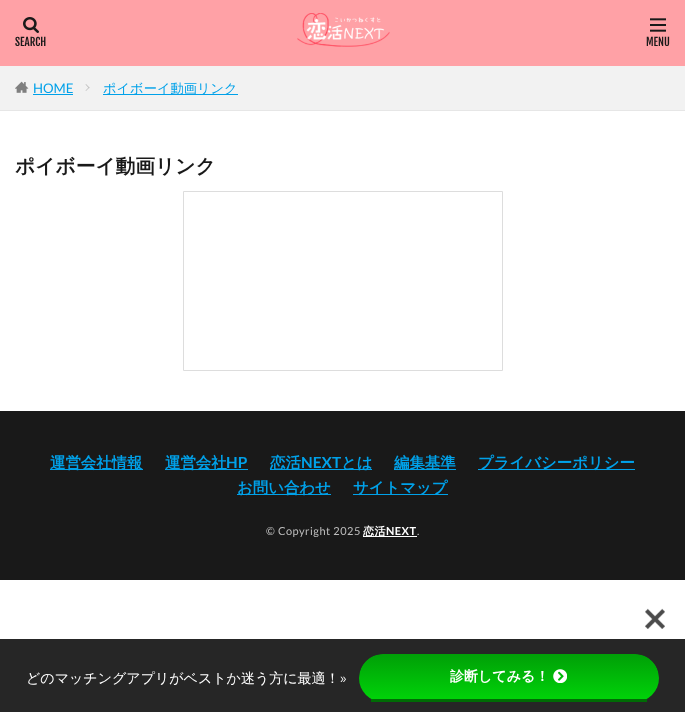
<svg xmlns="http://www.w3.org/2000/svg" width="685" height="712">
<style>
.a{font:11px Fjalla One;fill:#191919}
.b{font:13.25px Lato;fill:#00a1e9}
.c{font:500 13.25px WenQuanYi Zen Hei;fill:#00a1e9}
.d{font:bold 19.75px WenQuanYi Zen Hei;fill:#191919}
.e{font:bold 15.4px WenQuanYi Zen Hei;fill:#00a1e9}
.f{font:bold 15.4px Lato;fill:#00a1e9}
.g{font:11px Lato;letter-spacing:0.5px;fill:#bfbfbf}
.h{font:bold 11px WenQuanYi Zen Hei;letter-spacing:0.5px;fill:#fff}
.i{font:bold 11px Lato;letter-spacing:0.5px;fill:#fff}
.j{font:500 14px WenQuanYi Zen Hei;fill:#fff}
.k{font:100 14px Montserrat;fill:#fff}
.l{font:bold 14px WenQuanYi Zen Hei;fill:#fff}
</style>
<defs>
<clipPath id="clip1"><rect x="359" y="654" width="300" height="48" rx="24"/></clipPath>
<linearGradient id="g1" gradientUnits="userSpaceOnUse" x1="509" y1="654" x2="509" y2="699"><stop offset="0" stop-color="#009f07"/><stop offset="1" stop-color="#00d209"/></linearGradient>
</defs>
<rect width="100%" height="100%" fill="#fff"/>
<path fill="#ffa1a6" d="M0 0h685v66H0z"/>
<image href="1.png" x="23" y="17" width="16" height="16"/>
<image href="2.png" x="297" y="13" width="93" height="34"/>
<image href="3.png" x="650" y="18" width="16" height="14"/>
<path fill="#f2f2f2" d="M0 66h685v44H0z"/>
<path fill="#e6e6e6" d="M0 110h685v1H0z"/>
<image href="4.png" x="15" y="81" width="14" height="12"/>
<path fill="#00a1e9" d="M33 94h40v1H33z"/>
<path fill="#bfbfbf" d="M86 84l3.5 3.5l-.5 1l-3.5-4z"/>
<path fill="#bfbfbf" d="M89 87l.5 .5l-3.5 3.5l-.5-.5z"/>
<path fill="#00a1e9" d="M103 94h135v1H103z"/>
<path fill="none" stroke="#ddd" d="M183.5 191.5h319v179H183.5z"/>
<path fill="#191919" d="M0 411h685v169H0z"/>
<path fill="#00a1e9" d="M50 469h93v1H50z"/>
<path fill="#00a1e9" d="M165 469h83v1H165z"/>
<path fill="#00a1e9" d="M270 469h102v1H270z"/>
<path fill="#00a1e9" d="M394 469h62v1H394z"/>
<path fill="#00a1e9" d="M478 469h157v1H478z"/>
<path fill="#00a1e9" d="M237 494h94v1H237z"/>
<path fill="#00a1e9" d="M353 494h95v1H353z"/>
<path fill="#fff" d="M363 536h54v1H363z"/>
<path fill="#262626" d="M0 639h685v73H0z"/>
<image href="5.png" x="645" y="608" width="20" height="21"/>
<g clip-path="url(#clip1)">
<path fill="url(#g1)" d="M383 654h252c13.5 0 24 10.5 24 24v21h-300v-21c0-13.5 10.5-24 24-24z"/>
</g>
<path fill="#006c05" d="M371 699h276v3H371z"/>
<image href="6.png" x="553" y="669" width="14" height="14"/>
<text class="a" x="15" y="46">SEARCH</text>
<text class="a" x="646" y="46">MENU</text>
<text class="b" x="33" y="93">HOME</text>
<text class="c" x="103" y="93">ポイボーイ動画リンク</text>
<text class="d" x="15" y="173">ポイボーイ動画リンク</text>
<text class="e" x="50" y="468">運営会社情報</text>
<text class="e" x="165" y="468">運営会社</text>
<text class="f" x="226" y="468">HP</text>
<text class="e" x="270" y="468">恋活</text>
<text class="f" x="301" y="468">NEXT</text>
<text class="e" x="341" y="468">とは</text>
<text class="e" x="394" y="468">編集基準</text>
<text class="e" x="478" y="468">プライバシーポリシー</text>
<text class="e" x="237" y="493">お問い合わせ</text>
<text class="e" x="353" y="493">サイトマップ</text>
<text class="g" x="266" y="535">© Copyright 2025</text>
<text class="h" x="363" y="535">恋活</text>
<text class="i" x="386" y="535">NEXT</text>
<text class="g" x="417" y="535">.</text>
<text class="j" x="26" y="683">どのマッチングアプリがベストか迷う方に最適！</text>
<text class="k" x="340" y="683">»</text>
<text class="l" x="450" y="681">診断してみる！</text>
</svg>
